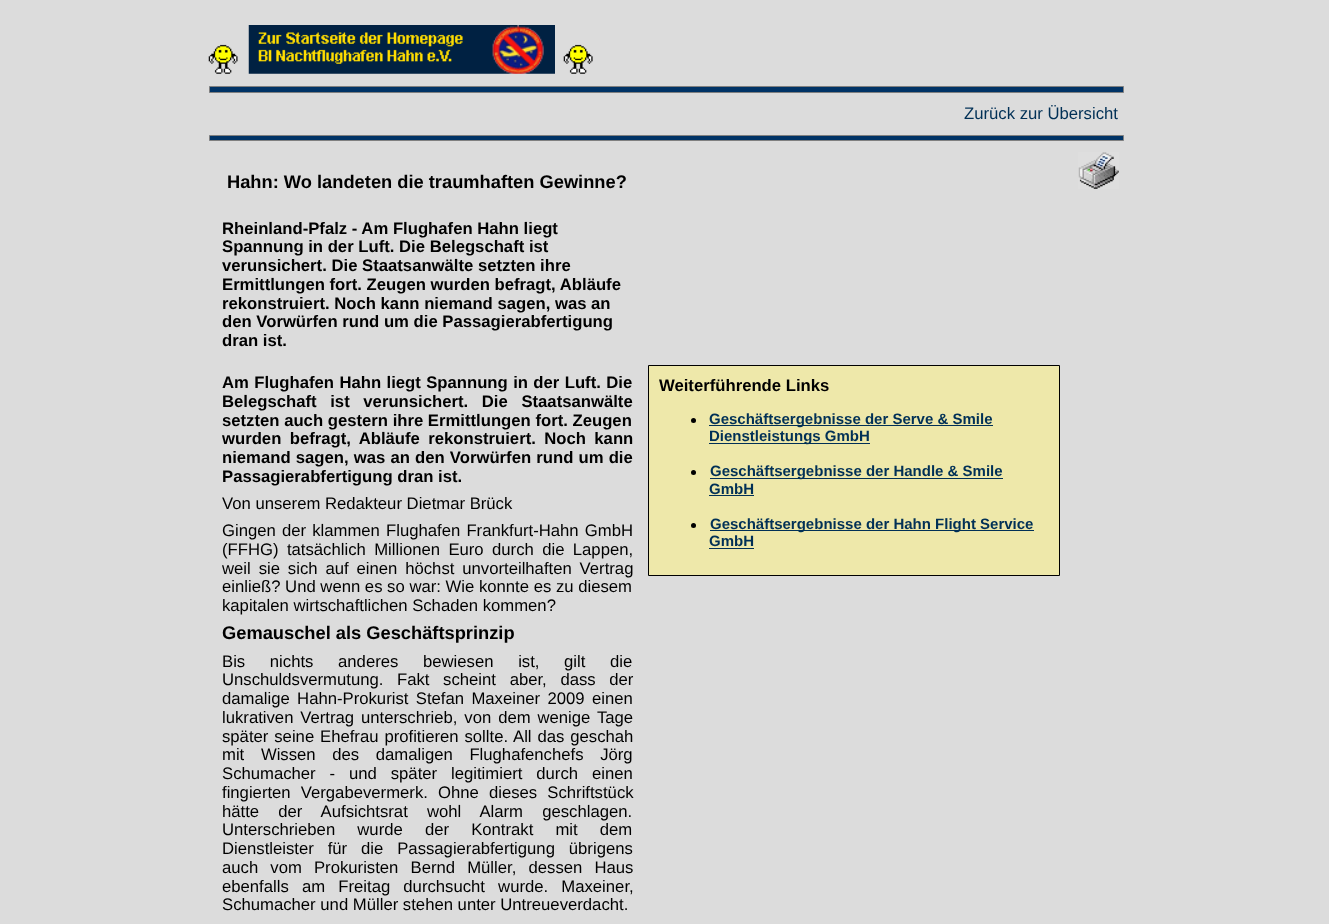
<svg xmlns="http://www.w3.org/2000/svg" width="1329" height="924">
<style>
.a{font:16.7px Liberation Sans;fill:#013056}
.b{font:bold 18.3px Liberation Sans;fill:#000}
.c{font:bold 16.7px Liberation Sans;fill:#000}
.d{font:16.7px Liberation Sans;fill:#000}
.e{font:bold 15px Liberation Sans;fill:#013056}
</style>
<rect width="100%" height="100%" fill="#dcdcdc"/>
<image href="1.png" x="208" y="44" width="30" height="30"/>
<image href="2.png" x="248" y="25" width="307" height="49"/>
<image href="3.png" x="563" y="44" width="30" height="30"/>
<path fill="#036" stroke="#808080" d="M209.5 86.5h914v6H209.5z"/>
<path fill="#036" stroke="#808080" d="M209.5 135.5h914v5H209.5z"/>
<path fill="#eee8aa" stroke="#000" d="M648.5 365.5h411v210H648.5z"/>
<circle fill="#000" cx="693.5" cy="420.5" r="2.5"/>
<path fill="#013056" d="M709 425h284v1H709z"/>
<path fill="#013056" d="M709 443h161v1H709z"/>
<circle fill="#000" cx="693.5" cy="472.5" r="2.5"/>
<path fill="#013056" d="M710 478h293v1H710z"/>
<path fill="#013056" d="M709 495h45v1H709z"/>
<circle fill="#000" cx="693.5" cy="525.5" r="2.5"/>
<path fill="#013056" d="M710 530h324v1H710z"/>
<path fill="#013056" d="M709 548h45v1H709z"/>
<image href="4.png" x="1078" y="152" width="41" height="37"/>
<text class="a" x="964" y="119">Zurück zur Übersicht</text>
<text class="b" x="227" y="188">Hahn: Wo landeten die traumhaften Gewinne?</text>
<text class="c" x="222" y="234">Rheinland-Pfalz - Am Flughafen Hahn liegt</text>
<text class="c" x="222" y="252">Spannung in der Luft. Die Belegschaft ist</text>
<text class="c" x="222" y="271">verunsichert. Die Staatsanwälte setzten ihre</text>
<text class="c" x="222" y="290">Ermittlungen fort. Zeugen wurden befragt, Abläufe</text>
<text class="c" x="222" y="309">rekonstruiert. Noch kann niemand sagen, was an</text>
<text class="c" x="222" y="327">den Vorwürfen rund um die Passagierabfertigung</text>
<text class="c" x="222" y="346">dran ist.</text>
<text class="c" x="222" y="388" word-spacing="0.75">Am Flughafen Hahn liegt Spannung in der Luft. Die</text>
<text class="c" x="222" y="407" word-spacing="9">Belegschaft ist verunsichert. Die Staatsanwälte</text>
<text class="c" x="222" y="426">setzten auch gestern ihre Ermittlungen fort. Zeugen</text>
<text class="c" x="222" y="444" word-spacing="3.75">wurden befragt, Abläufe rekonstruiert. Noch kann</text>
<text class="c" x="222" y="463" word-spacing="0.5">niemand sagen, was an den Vorwürfen rund um die</text>
<text class="c" x="222" y="482">Passagierabfertigung dran ist.</text>
<text class="d" x="222" y="509">Von unserem Redakteur Dietmar Brück</text>
<text class="d" x="222" y="536" word-spacing="1.5">Gingen der klammen Flughafen Frankfurt-Hahn GmbH</text>
<text class="d" x="222" y="555" word-spacing="3.75">(FFHG) tatsächlich Millionen Euro durch die Lappen,</text>
<text class="d" x="222" y="574" word-spacing="3.25">weil sie sich auf einen höchst unvorteilhaften Vertrag</text>
<text class="d" x="222" y="592">einließ? Und wenn es so war: Wie konnte es zu diesem</text>
<text class="d" x="222" y="611">kapitalen wirtschaftlichen Schaden kommen?</text>
<text class="b" x="222" y="639">Gemauschel als Geschäftsprinzip</text>
<text class="d" x="222" y="667" word-spacing="20">Bis nichts anderes bewiesen ist, gilt die</text>
<text class="d" x="222" y="685" word-spacing="9">Unschuldsvermutung. Fakt scheint aber, dass der</text>
<text class="d" x="222" y="704" word-spacing="2.75">damalige Hahn-Prokurist Stefan Maxeiner 2009 einen</text>
<text class="d" x="222" y="723" word-spacing="2.25">lukrativen Vertrag unterschrieb, von dem wenige Tage</text>
<text class="d" x="222" y="742" word-spacing="1.25">später seine Ehefrau profitieren sollte. All das geschah</text>
<text class="d" x="222" y="760" word-spacing="12">mit Wissen des damaligen Flughafenchefs Jörg</text>
<text class="d" x="222" y="779" word-spacing="9.25">Schumacher - und später legitimiert durch einen</text>
<text class="d" x="222" y="798" word-spacing="5.5">fingierten Vergabevermerk. Ohne dieses Schriftstück</text>
<text class="d" x="222" y="817" word-spacing="14.5">hätte der Aufsichtsrat wohl Alarm geschlagen.</text>
<text class="d" x="222" y="835" word-spacing="17.5">Unterschrieben wurde der Kontrakt mit dem</text>
<text class="d" x="222" y="854" word-spacing="9.25">Dienstleister für die Passagierabfertigung übrigens</text>
<text class="d" x="222" y="873" word-spacing="7.5">auch vom Prokuristen Bernd Müller, dessen Haus</text>
<text class="d" x="222" y="892" word-spacing="8.5">ebenfalls am Freitag durchsucht wurde. Maxeiner,</text>
<text class="d" x="222" y="910">Schumacher und Müller stehen unter Untreueverdacht.</text>
<text class="c" x="659" y="391">Weiterführende Links</text>
<text class="e" x="709" y="424">Geschäftsergebnisse der Serve &amp; Smile</text>
<text class="e" x="709" y="441">Dienstleistungs GmbH</text>
<text class="e" x="710" y="476">Geschäftsergebnisse der Handle &amp; Smile</text>
<text class="e" x="709" y="494">GmbH</text>
<text class="e" x="710" y="529">Geschäftsergebnisse der Hahn Flight Service</text>
<text class="e" x="709" y="546">GmbH</text>
</svg>
